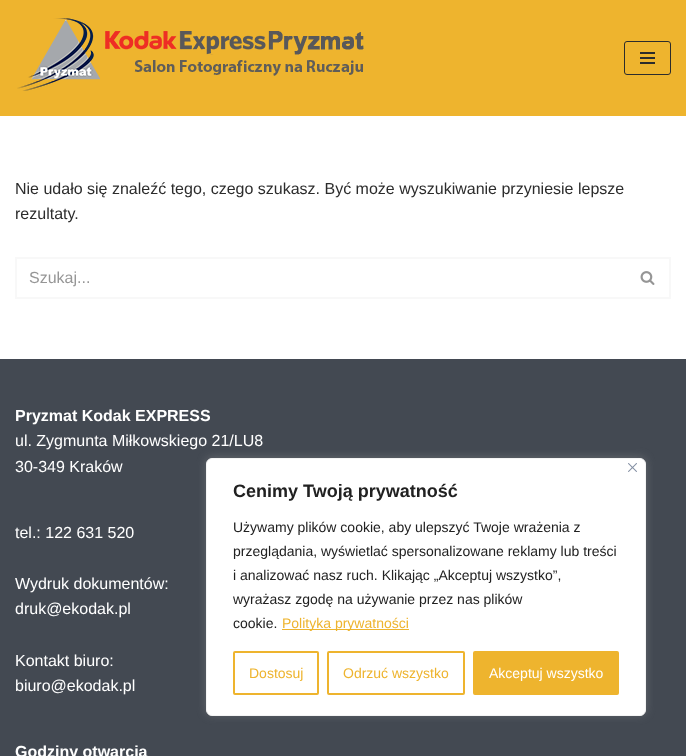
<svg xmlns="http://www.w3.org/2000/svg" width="686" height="756">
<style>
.a{font:16px Liberation Sans;fill:#2c2c2c}
.b{font:16px Liberation Sans;fill:#969696}
.c{font:bold 16px Liberation Sans;fill:#fff}
.d{font:16px Liberation Sans;fill:#fff}
.e{font:bold 18px Liberation Sans;fill:#212121}
.f{font:14px Liberation Sans;fill:#212121}
.g{font:14px Liberation Sans;fill:#eeb42e}
.h{font:14px Liberation Sans;fill:#fff}
</style>
<rect width="100%" height="100%" fill="#fff"/>
<path fill="#eeb42e" d="M0 0h686v116H0z"/>
<image href="1.png" x="17" y="18" width="347" height="73"/>
<rect fill="none" stroke="#2c2c2c" x="624.5" y="41.5" width="46" height="33" rx="2.5"/>
<path fill="#2c2c2c" d="M640 52h15v2H640z"/>
<path fill="#2c2c2c" d="M640 57h15v2H640z"/>
<path fill="#2c2c2c" d="M640 62h15v2H640z"/>
<path fill="#f8f8f8" d="M15 257h656v2H15z"/>
<path fill="#f8f8f8" d="M15 297h611v2H15z"/>
<path fill="#f8f8f8" d="M15 257h2v42H15z"/>
<path fill="#f8f8f8" d="M669 257h2v42H669z"/>
<path fill="#f8f8f8" d="M626 297h45v2H626z"/>
<image href="2.png" x="640" y="271" width="15" height="14"/>
<path fill="#434952" d="M0 359h686v397H0z"/>
<rect fill="#acabab4d" filter="blur(5px)" x="206" y="457" width="440" height="258" rx="6"/>
<rect fill="#fff" stroke="#f4f4f4" x="206.5" y="458.5" width="439" height="257" rx="5.5"/>
<image href="3.png" x="628" y="463" width="9" height="9"/>
<path fill="#eeb42e" d="M282 629h127v1H282z"/>
<rect fill="none" stroke="#eeb42e" stroke-width="2" x="234" y="652" width="84" height="42" rx="1"/>
<rect fill="none" stroke="#eeb42e" stroke-width="2" x="328" y="652" width="136" height="42" rx="1"/>
<rect fill="#eeb42e" stroke="#eeb42e" stroke-width="2" x="474" y="652" width="144" height="42" rx="1"/>
<text class="a" x="15" y="194">Nie udało się znaleźć tego, czego szukasz. Być może wyszukiwanie przyniesie lepsze</text>
<text class="a" x="15" y="219">rezultaty.</text>
<text class="b" x="29" y="283">Szukaj...</text>
<text class="c" x="15" y="421">Pryzmat Kodak EXPRESS</text>
<text class="d" x="15" y="446">ul. Zygmunta Miłkowskiego 21/LU8</text>
<text class="d" x="15" y="472">30-349 Kraków</text>
<text class="d" x="15" y="538">tel.: 122 631 520</text>
<text class="d" x="15" y="589">Wydruk dokumentów:</text>
<text class="d" x="15" y="614">druk@ekodak.pl</text>
<text class="d" x="15" y="666">Kontakt biuro:</text>
<text class="d" x="15" y="691">biuro@ekodak.pl</text>
<text class="c" x="15" y="757">Godziny otwarcia</text>
<text class="e" x="233" y="497">Cenimy Twoją prywatność</text>
<text class="f" x="233" y="532">Używamy plików cookie, aby ulepszyć Twoje wrażenia z</text>
<text class="f" x="233" y="556">przeglądania, wyświetlać spersonalizowane reklamy lub treści</text>
<text class="f" x="233" y="580">i analizować nasz ruch. Klikając „Akceptuj wszystko”,</text>
<text class="f" x="233" y="604">wyrażasz zgodę na używanie przez nas plików</text>
<text class="f" x="233" y="628">cookie.</text>
<text class="g" x="282" y="628">Polityka prywatności</text>
<text class="g" x="249" y="678">Dostosuj</text>
<text class="g" x="343" y="678">Odrzuć wszystko</text>
<text class="h" x="489" y="678">Akceptuj wszystko</text>
</svg>
